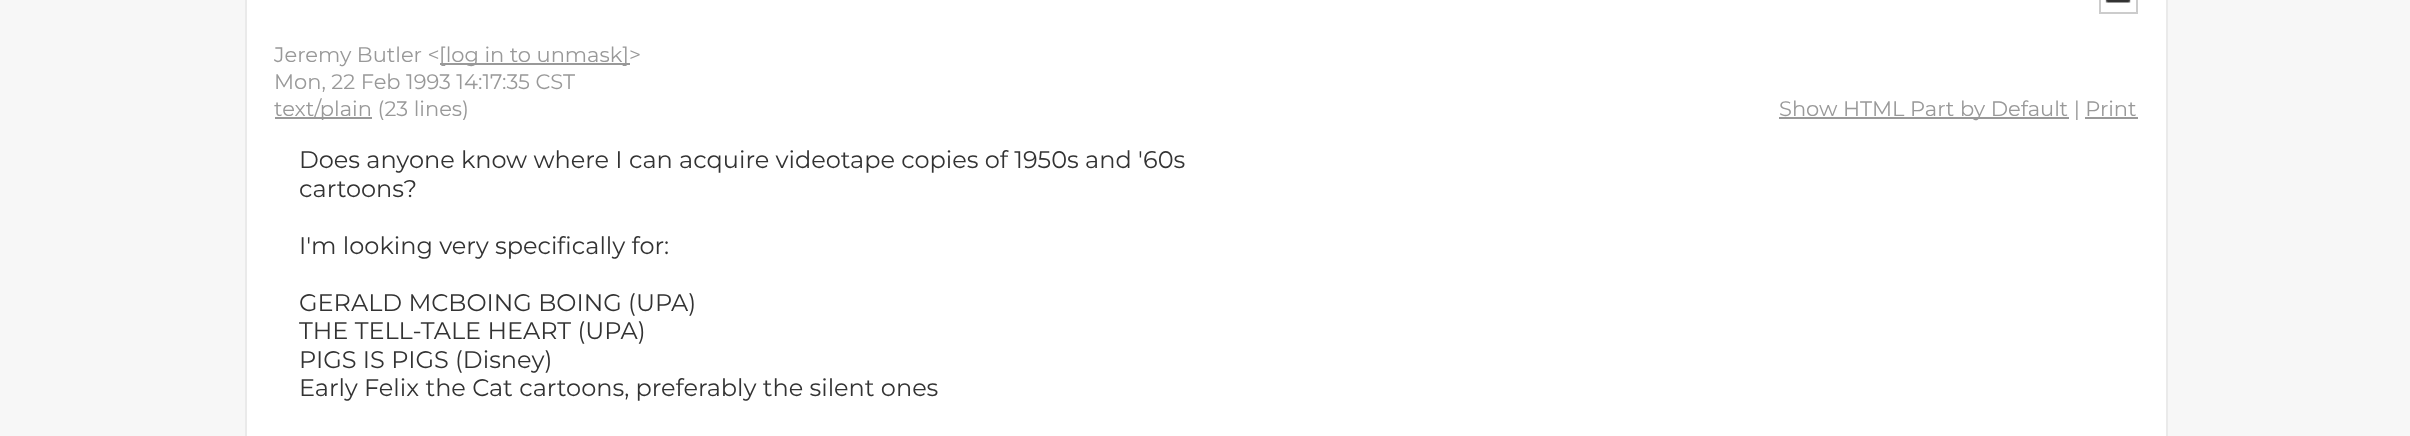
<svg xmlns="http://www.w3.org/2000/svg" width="2410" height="436">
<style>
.a{font:100 21px Montserrat;fill:#999}
.b{font:100 24px Montserrat;fill:#333}
</style>
<rect width="100%" height="100%" fill="#f7f7f7"/>
<path fill="#fff" d="M247 0h1919v436H247z"/>
<path fill="#eaeaea" d="M2166 0h2v436H2166z"/>
<path fill="#eaeaea" d="M245 0h2v436H245z"/>
<path fill="none" stroke="#ccc" stroke-width="2" d="M2100 -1h37v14H2100z"/>
<image href="1.png" x="2105" y="0" width="26" height="3"/>
<path fill="#999" d="M440 63h190v2H440z"/>
<path fill="#999" d="M275 117h97v2H275z"/>
<path fill="#999" d="M1779 117h290v2H1779z"/>
<path fill="#999" d="M2085 117h53v2H2085z"/>
<text class="a" x="274" y="62">Jeremy Butler &lt;</text>
<text class="a" x="439" y="62">[log in to unmask]&gt;</text>
<text class="a" x="274" y="89">Mon, 22 Feb 1993 14:17:35 CST</text>
<text class="a" x="274" y="116">text/plain (23 lines)</text>
<text class="a" x="1779" y="116">Show HTML Part by Default | Print</text>
<text class="b" x="299" y="168">Does anyone know where I can acquire videotape copies of 1950s and '60s</text>
<text class="b" x="299" y="197">cartoons?</text>
<text class="b" x="299" y="254">I'm looking very specifically for:</text>
<text class="b" x="299" y="311">GERALD MCBOING BOING (UPA)</text>
<text class="b" x="299" y="339">THE TELL-TALE HEART (UPA)</text>
<text class="b" x="299" y="368">PIGS IS PIGS (Disney)</text>
<text class="b" x="299" y="396">Early Felix the Cat cartoons, preferably the silent ones</text>
</svg>
